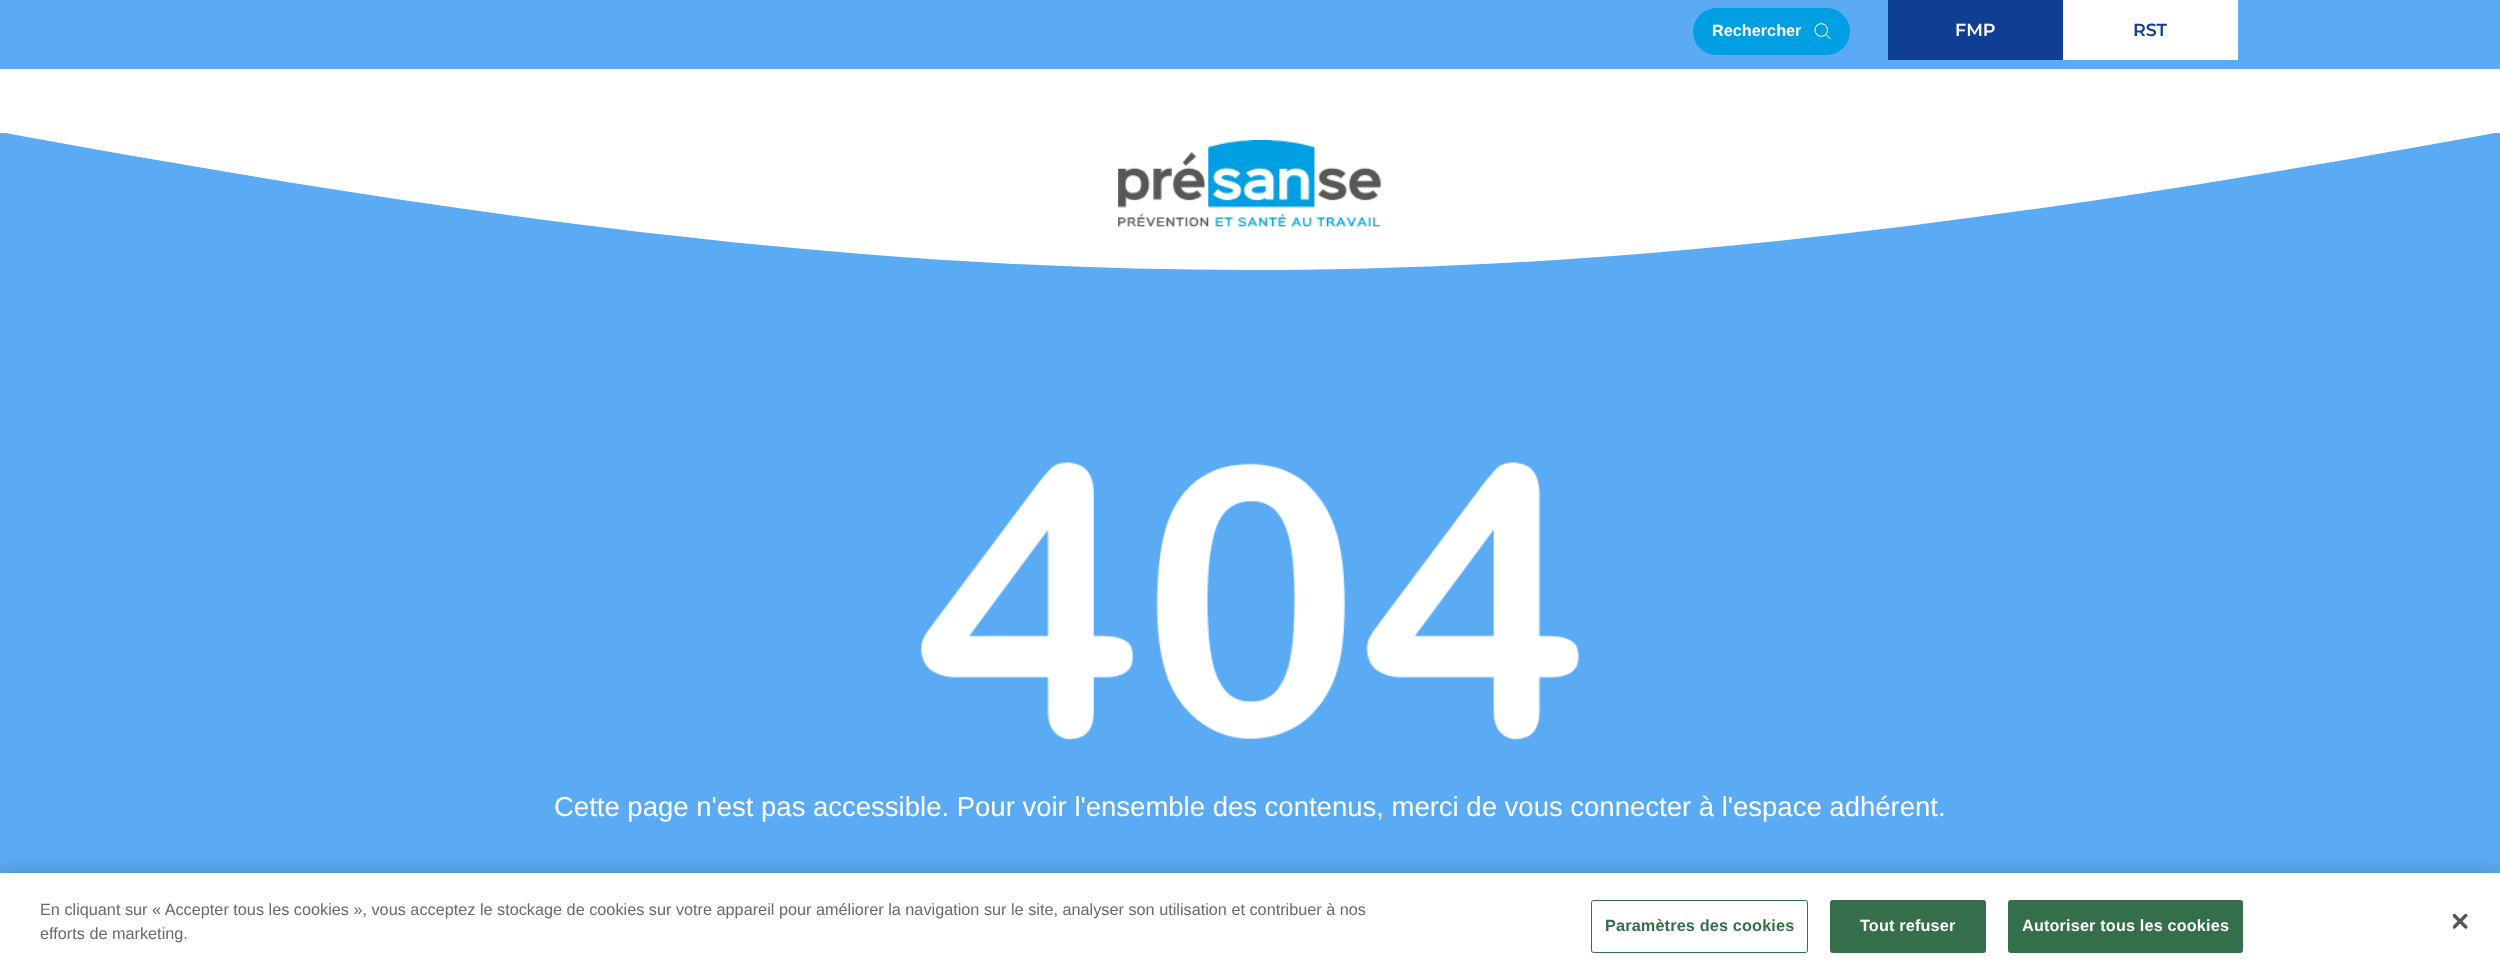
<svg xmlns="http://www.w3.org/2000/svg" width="2500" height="975">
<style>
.a{font:bold 16.25px Liberation Sans;fill:#fff}
.b{font:600 17.5px Montserrat;fill:#fff}
.c{font:600 17.5px Montserrat;fill:#0f3f93}
.d{font:27.5px Liberation Sans;fill:#fff}
.e{font:16.25px Liberation Sans;fill:#696969}
.f{font:bold 16.25px Liberation Sans;letter-spacing:0.15px;fill:#346e4a}
.g{font:bold 16.25px Liberation Sans;letter-spacing:0.15px;fill:#fff}
</style>
<defs>
<clipPath id="clip1"><path d="M0 133h2500v182H0z"/></clipPath>
</defs>
<rect width="100%" height="100%" fill="#5babf4"/>
<rect fill="#009ee3" x="1693" y="8" width="157" height="47" rx="23.5"/>
<image href="1.png" x="1814" y="23" width="17" height="17"/>
<path fill="#0f3f93" d="M1888 0h175v60H1888z"/>
<path fill="#fff" d="M2063 0h175v60H2063z"/>
<path fill="#fff" d="M0 69h2500v201H0z"/>
<image href="2.png" x="1118" y="140" width="263" height="88"/>
<g clip-path="url(#clip1)">
<path fill="#5babf4" d="M2500 316v-184c-1000 184-1500 184-2500 0v184z"/>
</g>
<image href="3.png" x="921" y="462" width="658" height="278"/>
<path fill="#00000033" filter="blur(11px)" d="M0 873h2500v102H0z"/>
<path fill="#fff" d="M0 873h2500v102H0z"/>
<rect fill="none" stroke="#346e4a" x="1591.5" y="900.5" width="216" height="52" rx="2"/>
<rect fill="#346e4a" stroke="#346e4a" x="1830.5" y="900.5" width="155" height="52" rx="2"/>
<rect fill="#346e4a" stroke="#346e4a" x="2008.5" y="900.5" width="234" height="52" rx="2"/>
<image href="4.png" x="2453" y="914" width="15" height="15"/>
<text class="a" x="1712" y="36">Rechercher</text>
<text class="b" x="1955" y="36">FMP</text>
<text class="c" x="2133" y="36">RST</text>
<text class="d" x="554" y="816">Cette page n'est pas accessible. Pour voir l'ensemble des contenus, merci de vous connecter à l'espace adhérent.</text>
<text class="e" x="40" y="915">En cliquant sur « Accepter tous les cookies », vous acceptez le stockage de cookies sur votre appareil pour améliorer la navigation sur le site, analyser son utilisation et contribuer à nos</text>
<text class="e" x="40" y="939">efforts de marketing.</text>
<text class="f" x="1605" y="931">Paramètres des cookies</text>
<text class="g" x="1860" y="931">Tout refuser</text>
<text class="g" x="2022" y="931">Autoriser tous les cookies</text>
</svg>
